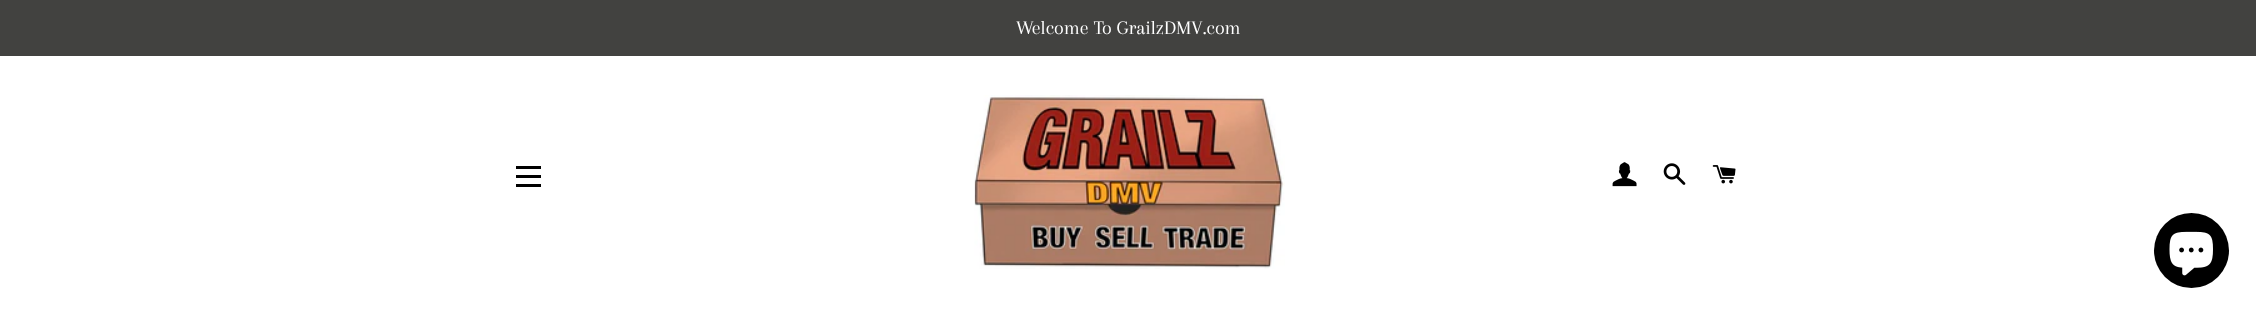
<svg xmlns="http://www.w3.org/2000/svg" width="2256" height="313">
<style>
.a{font:20px Arapey;fill:#fff}
</style>
<rect width="100%" height="100%" fill="#fff"/>
<path fill="#424240" d="M0 0h2256v56H0z"/>
<path fill="#000" d="M516 166h25v3H516z"/>
<path fill="#000" d="M516 175h25v3H516z"/>
<path fill="#000" d="M516 184h25v3H516z"/>
<image href="1.png" x="974" y="95" width="311" height="174"/>
<image href="2.png" x="1612" y="162" width="25" height="25"/>
<image href="3.png" x="1663" y="163" width="23" height="22"/>
<image href="4.png" x="1712" y="165" width="24" height="19"/>
<circle fill="#000" cx="2191.5" cy="250.5" r="37.5"/>
<image href="5.png" x="2169" y="231" width="44" height="45"/>
<text class="a" x="1016" y="34">Welcome To GrailzDMV.com</text>
</svg>
